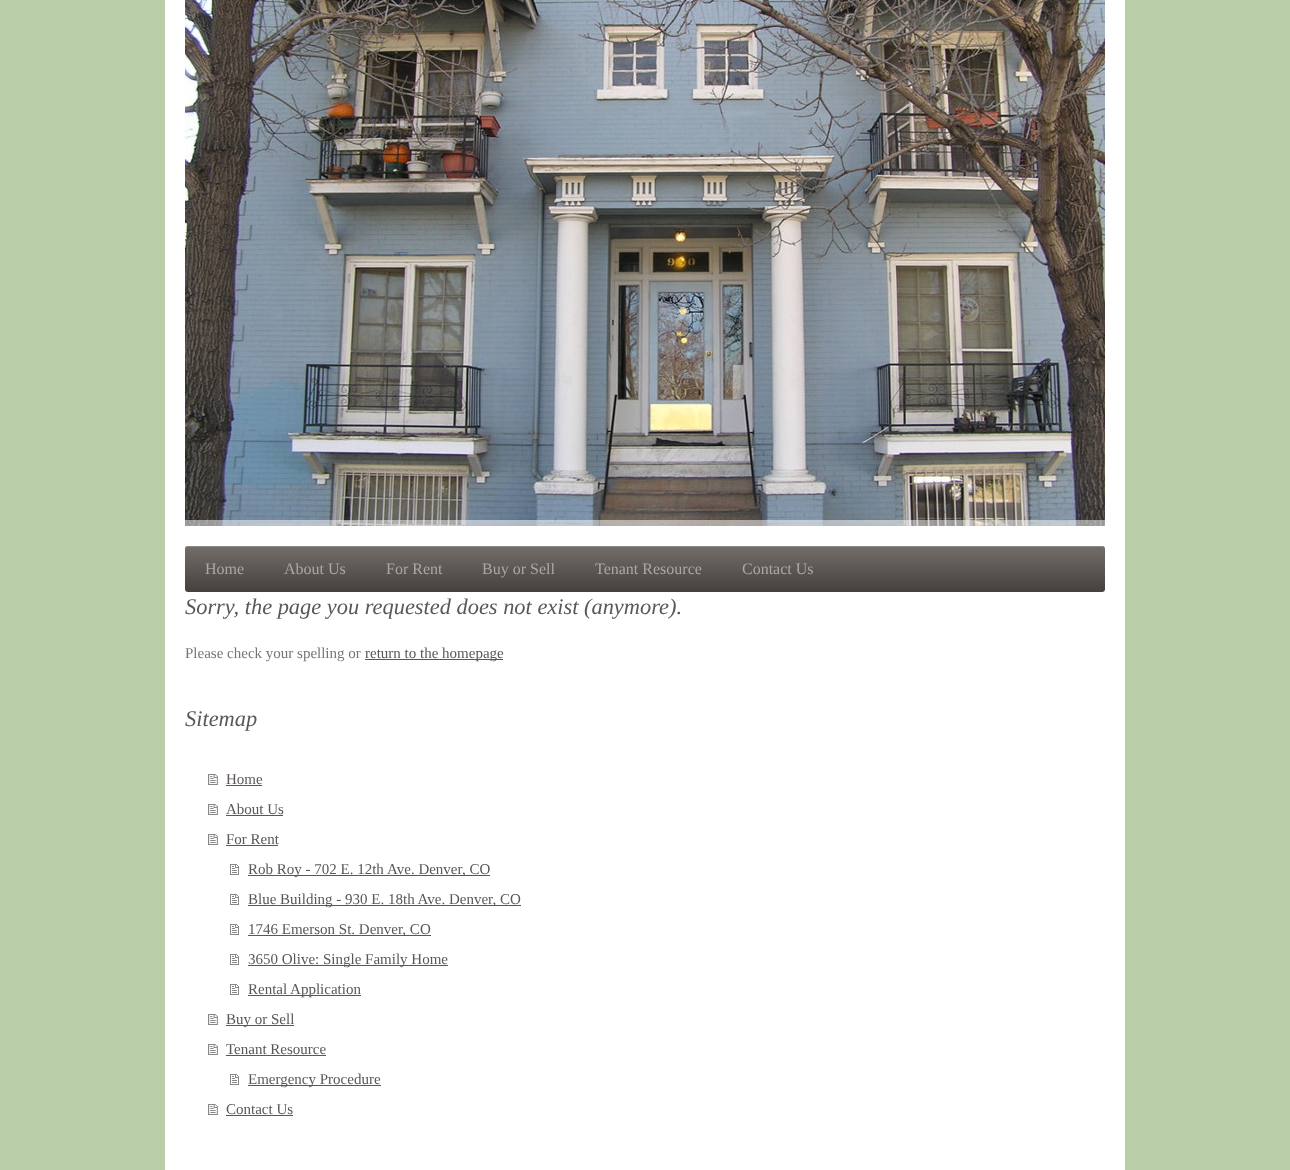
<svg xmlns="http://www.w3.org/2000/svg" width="1290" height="1170">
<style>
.a{font:16px Liberation Serif;fill:#aca7a5}
.b{font:italic 22.4px Liberation Serif;fill:#5c5754}
.c{font:15px Liberation Serif;fill:#757575}
.d{font:15px Liberation Serif;fill:#5c5754}
</style>
<defs>
<linearGradient id="g1" gradientUnits="userSpaceOnUse" x1="185" y1="546" x2="185" y2="592"><stop offset="0" stop-color="#746e6a"/><stop offset="1" stop-color="#44403e"/></linearGradient>
</defs>
<rect width="100%" height="100%" fill="#b9cda8"/>
<path fill="#fff" d="M165 0h960v1170H165z"/>
<image href="1.png" x="185" y="0" width="920" height="526"/>
<path fill="#ffffff80" d="M185 520h920v6H185z"/>
<rect fill="url(#g1)" x="185" y="546" width="920" height="46" rx="3"/>
<path fill="#8b8786" d="M188 547h914c2 0 3 1 3 3c0-2-1-4-3-4h-914c-2 0-3 2-3 4c0-2 1-3 3-3z"/>
<path fill="#5c5754" d="M365 659h138v1H365z"/>
<image href="2.png" x="208" y="774" width="10" height="11"/>
<path fill="#5c5754" d="M226 785h36v1H226z"/>
<image href="2.png" x="208" y="804" width="10" height="11"/>
<path fill="#5c5754" d="M226 815h57v1H226z"/>
<image href="2.png" x="208" y="834" width="10" height="11"/>
<path fill="#5c5754" d="M226 845h52v1H226z"/>
<image href="3.png" x="230" y="864" width="9" height="11"/>
<path fill="#5c5754" d="M248 875h242v1H248z"/>
<image href="3.png" x="230" y="894" width="9" height="11"/>
<path fill="#5c5754" d="M248 905h273v1H248z"/>
<image href="3.png" x="230" y="924" width="9" height="11"/>
<path fill="#5c5754" d="M248 935h183v1H248z"/>
<image href="3.png" x="230" y="954" width="9" height="11"/>
<path fill="#5c5754" d="M248 965h200v1H248z"/>
<image href="3.png" x="230" y="984" width="9" height="11"/>
<path fill="#5c5754" d="M248 995h113v1H248z"/>
<image href="2.png" x="208" y="1014" width="10" height="11"/>
<path fill="#5c5754" d="M226 1025h68v1H226z"/>
<image href="2.png" x="208" y="1044" width="10" height="11"/>
<path fill="#5c5754" d="M226 1055h100v1H226z"/>
<image href="3.png" x="230" y="1074" width="9" height="11"/>
<path fill="#5c5754" d="M248 1085h133v1H248z"/>
<image href="2.png" x="208" y="1104" width="10" height="11"/>
<path fill="#5c5754" d="M226 1115h67v1H226z"/>
<text class="a" x="205" y="574">Home</text>
<text class="a" x="284" y="574">About Us</text>
<text class="a" x="386" y="574">For Rent</text>
<text class="a" x="482" y="574">Buy or Sell</text>
<text class="a" x="595" y="574">Tenant Resource</text>
<text class="a" x="742" y="574">Contact Us</text>
<text class="b" x="185" y="614">Sorry, the page you requested does not exist (anymore).</text>
<text class="c" x="185" y="658">Please check your spelling or</text>
<text class="d" x="365" y="658">return to the homepage</text>
<text class="b" x="185" y="726">Sitemap</text>
<text class="d" x="226" y="784">Home</text>
<text class="d" x="226" y="814">About Us</text>
<text class="d" x="226" y="844">For Rent</text>
<text class="d" x="248" y="874">Rob Roy - 702 E. 12th</text>
<text class="d" x="387" y="874">Ave. Denver, CO</text>
<text class="d" x="248" y="904">Blue Building - 930 E. 18th Ave. Denver, CO</text>
<text class="d" x="248" y="934">1746 Emerson St. Denver, CO</text>
<text class="d" x="248" y="964">3650 Olive: Single Family Home</text>
<text class="d" x="248" y="994">Rental Application</text>
<text class="d" x="226" y="1024">Buy or Sell</text>
<text class="d" x="226" y="1054">Tenant Resource</text>
<text class="d" x="248" y="1084">Emergency Procedure</text>
<text class="d" x="226" y="1114">Contact Us</text>
</svg>
